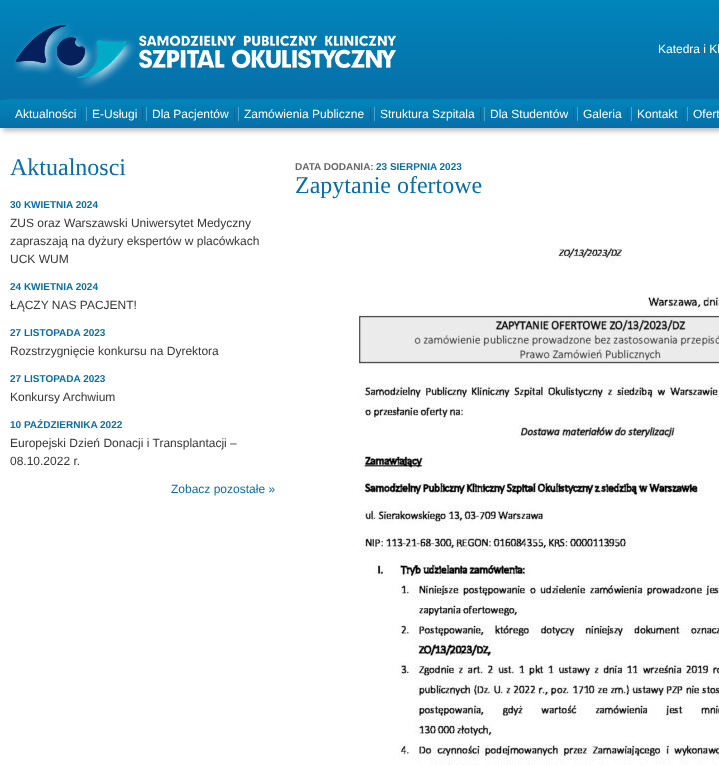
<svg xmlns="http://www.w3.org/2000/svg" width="719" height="765">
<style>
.a{font:12px Liberation Sans;fill:#fff}
.b{font:24px Liberation Serif;fill:#076ea8}
.c{font:bold 10px Liberation Sans;fill:#076ea8}
.d{font:12px Liberation Sans;fill:#363636}
.e{font:12px Liberation Sans;fill:#076ea8}
.f{font:bold 10px Liberation Sans;fill:#666}
</style>
<defs>
<linearGradient id="g1" gradientUnits="userSpaceOnUse" x1="0" y1="0" x2="0" y2="100"><stop offset="0" stop-color="#0085ba"/><stop offset="1" stop-color="#076ea8"/></linearGradient>
<linearGradient id="g2" gradientUnits="userSpaceOnUse" x1="0" y1="100" x2="0" y2="128"><stop offset="0" stop-color="#0085ba"/><stop offset="1" stop-color="#076ea8"/></linearGradient>
</defs>
<rect width="100%" height="100%" fill="#fff"/>
<path fill="url(#g1)" d="M0 0h719v100H0z"/>
<image href="1.png" x="13" y="23" width="383" height="66"/>
<path fill="#bbb" filter="blur(2.5px)" d="M3 103h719v28H3z"/>
<path fill="url(#g2)" d="M0 100h719v28H0z"/>
<path fill="#026490" d="M81 107h1v14H81z"/>
<path fill="#026490" d="M142 107h1v14H142z"/>
<path fill="#4fa2c9" d="M86 107h1v14H86z"/>
<path fill="#026490" d="M234 107h1v14H234z"/>
<path fill="#4fa2c9" d="M146 107h1v14H146z"/>
<path fill="#026490" d="M370 107h1v14H370z"/>
<path fill="#4fa2c9" d="M238 107h1v14H238z"/>
<path fill="#026490" d="M480 107h1v14H480z"/>
<path fill="#4fa2c9" d="M374 107h1v14H374z"/>
<path fill="#026490" d="M573 107h1v14H573z"/>
<path fill="#4fa2c9" d="M484 107h1v14H484z"/>
<path fill="#026490" d="M627 107h1v14H627z"/>
<path fill="#4fa2c9" d="M577 107h1v14H577z"/>
<path fill="#026490" d="M683 107h1v14H683z"/>
<path fill="#4fa2c9" d="M631 107h1v14H631z"/>
<path fill="#4fa2c9" d="M687 107h1v14H687z"/>
<image href="2.png" x="359" y="248" width="360" height="517"/>
<text class="a" x="658" y="53">Katedra i Kl</text>
<text class="a" x="15" y="118">Aktualności</text>
<text class="a" x="92" y="118">E-Usługi</text>
<text class="a" x="152" y="118">Dla Pacjentów</text>
<text class="a" x="244" y="118">Zamówienia Publiczne</text>
<text class="a" x="380" y="118">Struktura Szpitala</text>
<text class="a" x="490" y="118">Dla Studentów</text>
<text class="a" x="583" y="118">Galeria</text>
<text class="a" x="637" y="118">Kontakt</text>
<text class="a" x="693" y="118">Ofert</text>
<text class="b" x="10" y="175">Aktualnosci</text>
<text class="c" x="10" y="208">30 KWIETNIA 2024</text>
<text class="d" x="10" y="227">ZUS oraz Warszawski Uniwersytet Medyczny</text>
<text class="d" x="10" y="245">zapraszają na dyżury ekspertów w placówkach</text>
<text class="d" x="10" y="263">UCK WUM</text>
<text class="c" x="10" y="290">24 KWIETNIA 2024</text>
<text class="d" x="10" y="309">ŁĄCZY NAS PACJENT!</text>
<text class="c" x="10" y="336">27 LISTOPADA 2023</text>
<text class="d" x="10" y="355">Rozstrzygnięcie konkursu na Dyrektora</text>
<text class="c" x="10" y="382">27 LISTOPADA 2023</text>
<text class="d" x="10" y="401">Konkursy Archwium</text>
<text class="c" x="10" y="428">10 PAŹDZIERNIKA 2022</text>
<text class="d" x="10" y="447">Europejski Dzień Donacji i Transplantacji –</text>
<text class="d" x="10" y="465">08.10.2022 r.</text>
<text class="e" x="171" y="493">Zobacz pozostałe »</text>
<text class="f" x="295" y="170">DATA DODANIA:</text>
<text class="c" x="376" y="170">23 SIERPNIA 2023</text>
<text class="b" x="295" y="193">Zapytanie ofertowe</text>
</svg>
